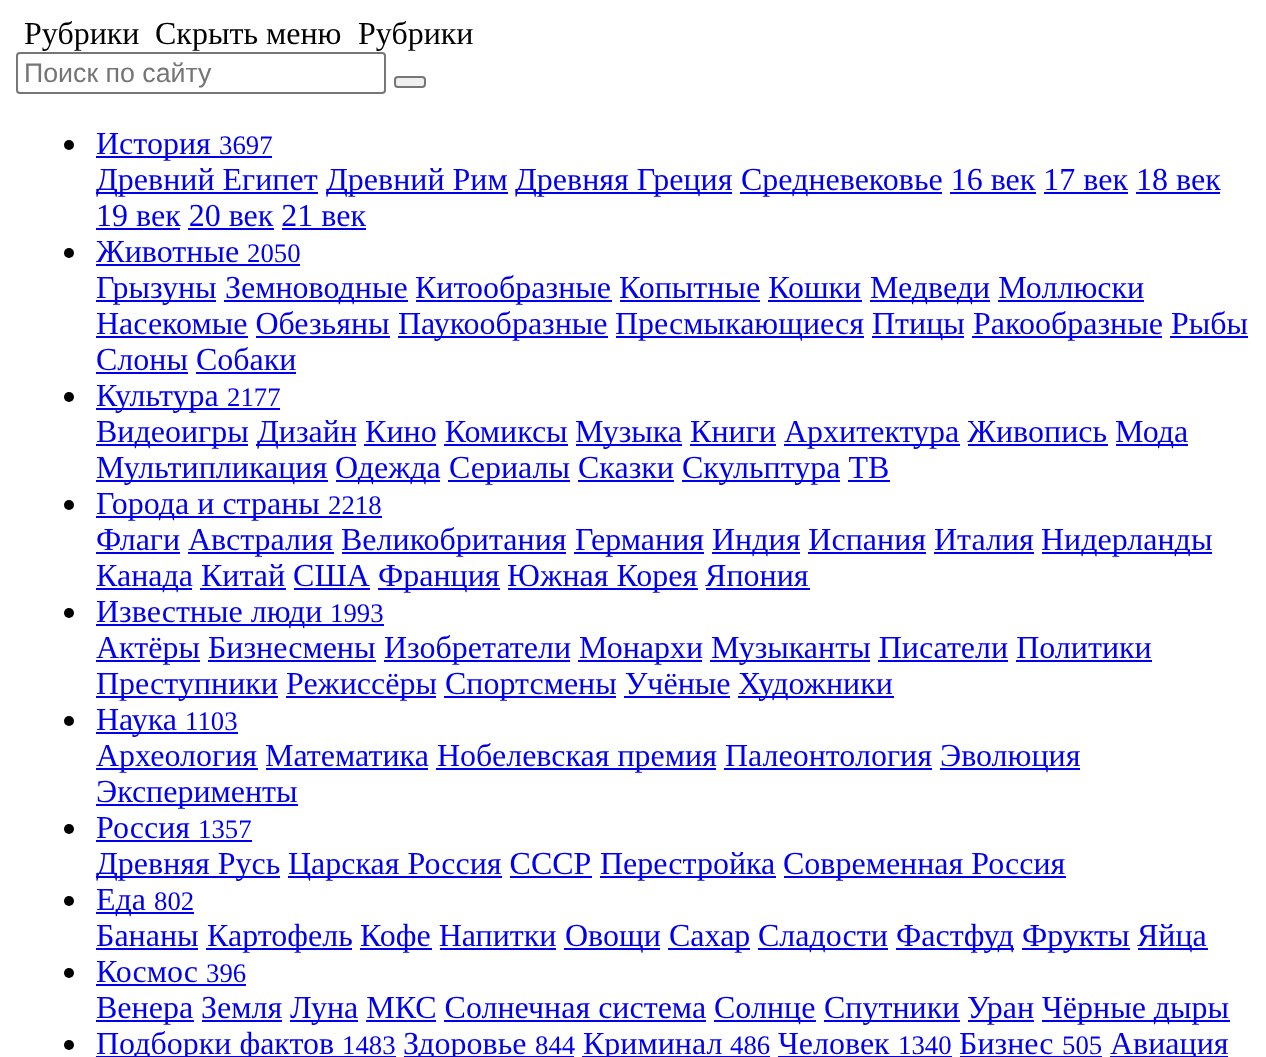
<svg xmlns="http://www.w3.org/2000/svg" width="1266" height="1057">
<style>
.a{font:32px Liberation Serif;fill:#000}
.b{font:26.75px Liberation Sans;fill:#757575}
.c{font:32px Liberation Serif;fill:#00e}
.d{font:26.75px Liberation Serif;fill:#00e}
</style>
<rect width="100%" height="100%" fill="#fff"/>
<rect fill="none" stroke="#767676" stroke-width="2" x="17" y="53" width="368" height="40" rx="3"/>
<rect fill="#efefef" stroke="#767676" stroke-width="2" x="395" y="77" width="30" height="10" rx="3"/>
<circle fill="#000" cx="69" cy="145" r="5"/>
<path fill="#00e" d="M96 156h176v2H96z"/>
<path fill="#00e" d="M96 192h222v2H96z"/>
<path fill="#00e" d="M326 192h182v2H326z"/>
<path fill="#00e" d="M516 192h216v2H516z"/>
<path fill="#00e" d="M740 192h202v2H740z"/>
<path fill="#00e" d="M950 192h86v2H950z"/>
<path fill="#00e" d="M1044 192h84v2H1044z"/>
<path fill="#00e" d="M1136 192h84v2H1136z"/>
<path fill="#00e" d="M96 228h84v2H96z"/>
<path fill="#00e" d="M188 228h86v2H188z"/>
<path fill="#00e" d="M282 228h84v2H282z"/>
<circle fill="#000" cx="69" cy="253" r="5"/>
<path fill="#00e" d="M96 264h204v2H96z"/>
<path fill="#00e" d="M96 300h120v2H96z"/>
<path fill="#00e" d="M224 300h184v2H224z"/>
<path fill="#00e" d="M416 300h196v2H416z"/>
<path fill="#00e" d="M870 300h120v2H870z"/>
<path fill="#00e" d="M620 300h140v2H620z"/>
<path fill="#00e" d="M768 300h94v2H768z"/>
<path fill="#00e" d="M998 300h146v2H998z"/>
<path fill="#00e" d="M96 336h152v2H96z"/>
<path fill="#00e" d="M398 336h210v2H398z"/>
<path fill="#00e" d="M616 336h248v2H616z"/>
<path fill="#00e" d="M872 336h92v2H872z"/>
<path fill="#00e" d="M972 336h190v2H972z"/>
<path fill="#00e" d="M256 336h134v2H256z"/>
<path fill="#00e" d="M1170 336h78v2H1170z"/>
<path fill="#00e" d="M96 372h92v2H96z"/>
<path fill="#00e" d="M196 372h100v2H196z"/>
<circle fill="#000" cx="69" cy="397" r="5"/>
<path fill="#00e" d="M96 408h184v2H96z"/>
<path fill="#00e" d="M96 444h152v2H96z"/>
<path fill="#00e" d="M256 444h100v2H256z"/>
<path fill="#00e" d="M576 444h106v2H576z"/>
<path fill="#00e" d="M784 444h176v2H784z"/>
<path fill="#00e" d="M1116 444h72v2H1116z"/>
<path fill="#00e" d="M364 444h72v2H364z"/>
<path fill="#00e" d="M444 444h124v2H444z"/>
<path fill="#00e" d="M690 444h86v2H690z"/>
<path fill="#00e" d="M968 444h140v2H968z"/>
<path fill="#00e" d="M96 480h232v2H96z"/>
<path fill="#00e" d="M336 480h104v2H336z"/>
<path fill="#00e" d="M448 480h122v2H448z"/>
<path fill="#00e" d="M682 480h158v2H682z"/>
<path fill="#00e" d="M578 480h96v2H578z"/>
<path fill="#00e" d="M848 480h42v2H848z"/>
<circle fill="#000" cx="69" cy="505" r="5"/>
<path fill="#00e" d="M96 516h286v2H96z"/>
<path fill="#00e" d="M96 552h84v2H96z"/>
<path fill="#00e" d="M188 552h146v2H188z"/>
<path fill="#00e" d="M342 552h224v2H342z"/>
<path fill="#00e" d="M574 552h130v2H574z"/>
<path fill="#00e" d="M712 552h88v2H712z"/>
<path fill="#00e" d="M1042 552h170v2H1042z"/>
<path fill="#00e" d="M808 552h118v2H808z"/>
<path fill="#00e" d="M934 552h100v2H934z"/>
<path fill="#00e" d="M96 588h96v2H96z"/>
<path fill="#00e" d="M378 588h122v2H378z"/>
<path fill="#00e" d="M508 588h190v2H508z"/>
<path fill="#00e" d="M200 588h86v2H200z"/>
<path fill="#00e" d="M294 588h76v2H294z"/>
<path fill="#00e" d="M706 588h104v2H706z"/>
<circle fill="#000" cx="69" cy="613" r="5"/>
<path fill="#00e" d="M96 624h288v2H96z"/>
<path fill="#00e" d="M96 660h104v2H96z"/>
<path fill="#00e" d="M384 660h186v2H384z"/>
<path fill="#00e" d="M578 660h124v2H578z"/>
<path fill="#00e" d="M710 660h160v2H710z"/>
<path fill="#00e" d="M208 660h168v2H208z"/>
<path fill="#00e" d="M878 660h130v2H878z"/>
<path fill="#00e" d="M1016 660h136v2H1016z"/>
<path fill="#00e" d="M96 696h182v2H96z"/>
<path fill="#00e" d="M286 696h150v2H286z"/>
<path fill="#00e" d="M444 696h172v2H444z"/>
<path fill="#00e" d="M738 696h156v2H738z"/>
<path fill="#00e" d="M624 696h106v2H624z"/>
<circle fill="#000" cx="69" cy="721" r="5"/>
<path fill="#00e" d="M96 732h142v2H96z"/>
<path fill="#00e" d="M96 768h162v2H96z"/>
<path fill="#00e" d="M436 768h280v2H436z"/>
<path fill="#00e" d="M940 768h140v2H940z"/>
<path fill="#00e" d="M266 768h162v2H266z"/>
<path fill="#00e" d="M724 768h208v2H724z"/>
<path fill="#00e" d="M96 804h202v2H96z"/>
<circle fill="#000" cx="69" cy="829" r="5"/>
<path fill="#00e" d="M96 840h156v2H96z"/>
<path fill="#00e" d="M96 876h184v2H96z"/>
<path fill="#00e" d="M288 876h214v2H288z"/>
<path fill="#00e" d="M600 876h176v2H600z"/>
<path fill="#00e" d="M784 876h282v2H784z"/>
<path fill="#00e" d="M510 876h82v2H510z"/>
<circle fill="#000" cx="69" cy="901" r="5"/>
<path fill="#00e" d="M96 912h98v2H96z"/>
<path fill="#00e" d="M96 948h102v2H96z"/>
<path fill="#00e" d="M206 948h146v2H206z"/>
<path fill="#00e" d="M360 948h72v2H360z"/>
<path fill="#00e" d="M564 948h96v2H564z"/>
<path fill="#00e" d="M668 948h82v2H668z"/>
<path fill="#00e" d="M758 948h130v2H758z"/>
<path fill="#00e" d="M896 948h118v2H896z"/>
<path fill="#00e" d="M1022 948h108v2H1022z"/>
<path fill="#00e" d="M1138 948h70v2H1138z"/>
<path fill="#00e" d="M440 948h116v2H440z"/>
<circle fill="#000" cx="69" cy="973" r="5"/>
<path fill="#00e" d="M96 984h150v2H96z"/>
<path fill="#00e" d="M96 1020h98v2H96z"/>
<path fill="#00e" d="M290 1020h68v2H290z"/>
<path fill="#00e" d="M714 1020h102v2H714z"/>
<path fill="#00e" d="M824 1020h136v2H824z"/>
<path fill="#00e" d="M968 1020h66v2H968z"/>
<path fill="#00e" d="M1042 1020h188v2H1042z"/>
<path fill="#00e" d="M202 1020h80v2H202z"/>
<path fill="#00e" d="M366 1020h70v2H366z"/>
<path fill="#00e" d="M444 1020h262v2H444z"/>
<circle fill="#000" cx="69" cy="1045" r="5"/>
<path fill="#00e" d="M96 1056h300v1H96z"/>
<path fill="#00e" d="M404 1056h170v1H404z"/>
<path fill="#00e" d="M582 1056h188v1H582z"/>
<path fill="#00e" d="M778 1056h174v1H778z"/>
<path fill="#00e" d="M960 1056h142v1H960z"/>
<path fill="#00e" d="M1110 1056h118v1H1110z"/>
<text class="a" x="24" y="44">Рубрики</text>
<text class="a" x="155" y="44">Скрыть меню</text>
<text class="a" x="358" y="44">Рубрики</text>
<text class="b" x="24" y="82">Поиск по сайту</text>
<text class="c" x="96" y="154">История</text>
<text class="d" x="219" y="154">3697</text>
<text class="c" x="96" y="190">Древний Египет</text>
<text class="c" x="326" y="190">Древний Рим</text>
<text class="c" x="515" y="190">Древняя Греция</text>
<text class="c" x="741" y="190">Средневековье 16 век 17 век 18 век</text>
<text class="c" x="96" y="226">19 век 20 век 21 век</text>
<text class="c" x="96" y="262">Животные</text>
<text class="d" x="247" y="262">2050</text>
<text class="c" x="96" y="298">Грызуны</text>
<text class="c" x="225" y="298">Земноводные</text>
<text class="c" x="415" y="298">Китообразные Копытные Кошки</text>
<text class="c" x="870" y="298">Медведи Моллюски</text>
<text class="c" x="96" y="334">Насекомые Обезьяны</text>
<text class="c" x="398" y="334">Паукообразные</text>
<text class="c" x="615" y="334">Пресмыкающиеся</text>
<text class="c" x="872" y="334">Птицы</text>
<text class="c" x="973" y="334">Ракообразные Рыбы</text>
<text class="c" x="96" y="370">Слоны Собаки</text>
<text class="c" x="96" y="406">Культура</text>
<text class="d" x="227" y="406">2177</text>
<text class="c" x="96" y="442">Видеоигры</text>
<text class="c" x="257" y="442">Дизайн Кино Комиксы</text>
<text class="c" x="575" y="442">Музыка Книги</text>
<text class="c" x="784" y="442">Архитектура Живопись</text>
<text class="c" x="1115" y="442">Мода</text>
<text class="c" x="96" y="478">Мультипликация</text>
<text class="c" x="335" y="478">Одежда</text>
<text class="c" x="449" y="478">Сериалы Сказки</text>
<text class="c" x="682" y="478">Скульптура ТВ</text>
<text class="c" x="96" y="514">Города и страны</text>
<text class="d" x="328" y="514">2218</text>
<text class="c" x="96" y="550">Флаги</text>
<text class="c" x="188" y="550">Австралия</text>
<text class="c" x="341" y="550">Великобритания</text>
<text class="c" x="575" y="550">Германия</text>
<text class="c" x="712" y="550">Индия Испания Италия</text>
<text class="c" x="1041" y="550">Нидерланды</text>
<text class="c" x="96" y="586">Канада Китай США</text>
<text class="c" x="378" y="586">Франция</text>
<text class="c" x="507" y="586">Южная Корея Япония</text>
<text class="c" x="96" y="622">Известные люди</text>
<text class="d" x="330" y="622">1993</text>
<text class="c" x="96" y="658">Актёры Бизнесмены</text>
<text class="c" x="384" y="658">Изобретатели</text>
<text class="c" x="579" y="658">Монархи</text>
<text class="c" x="711" y="658">Музыканты Писатели Политики</text>
<text class="c" x="96" y="694">Преступники</text>
<text class="c" x="286" y="694">Режиссёры</text>
<text class="c" x="445" y="694">Спортсмены Учёные</text>
<text class="c" x="738" y="694">Художники</text>
<text class="c" x="96" y="730">Наука</text>
<text class="d" x="185" y="730">1103</text>
<text class="c" x="96" y="766">Археология Математика</text>
<text class="c" x="437" y="766">Нобелевская премия Палеонтология</text>
<text class="c" x="940" y="766">Эволюция</text>
<text class="c" x="96" y="802">Эксперименты</text>
<text class="c" x="96" y="838">Россия</text>
<text class="d" x="198" y="838">1357</text>
<text class="c" x="96" y="874">Древняя Русь</text>
<text class="c" x="288" y="874">Царская Россия СССР</text>
<text class="c" x="600" y="874">Перестройка</text>
<text class="c" x="783" y="874">Современная Россия</text>
<text class="c" x="96" y="910">Еда</text>
<text class="d" x="154" y="910">802</text>
<text class="c" x="96" y="946">Бананы</text>
<text class="c" x="207" y="946">Картофель</text>
<text class="c" x="360" y="946">Кофе Напитки</text>
<text class="c" x="565" y="946">Овощи</text>
<text class="c" x="669" y="946">Сахар</text>
<text class="c" x="758" y="946">Сладости</text>
<text class="c" x="896" y="946">Фастфуд</text>
<text class="c" x="1022" y="946">Фрукты</text>
<text class="c" x="1137" y="946">Яйца</text>
<text class="c" x="96" y="982">Космос</text>
<text class="d" x="206" y="982">396</text>
<text class="c" x="96" y="1018">Венера Земля</text>
<text class="c" x="290" y="1018">Луна МКС Солнечная система</text>
<text class="c" x="714" y="1018">Солнце</text>
<text class="c" x="824" y="1018">Спутники</text>
<text class="c" x="967" y="1018">Уран</text>
<text class="c" x="1042" y="1018">Чёрные дыры</text>
<text class="c" x="96" y="1054">Подборки фактов</text>
<text class="d" x="342" y="1054">1483</text>
<text class="c" x="403" y="1054">Здоровье</text>
<text class="d" x="535" y="1054">844</text>
<text class="c" x="583" y="1054">Криминал</text>
<text class="d" x="730" y="1054">486</text>
<text class="c" x="778" y="1054">Человек</text>
<text class="d" x="898" y="1054">1340</text>
<text class="c" x="959" y="1054">Бизнес</text>
<text class="d" x="1062" y="1054">505</text>
<text class="c" x="1110" y="1054">Авиация</text>
</svg>
